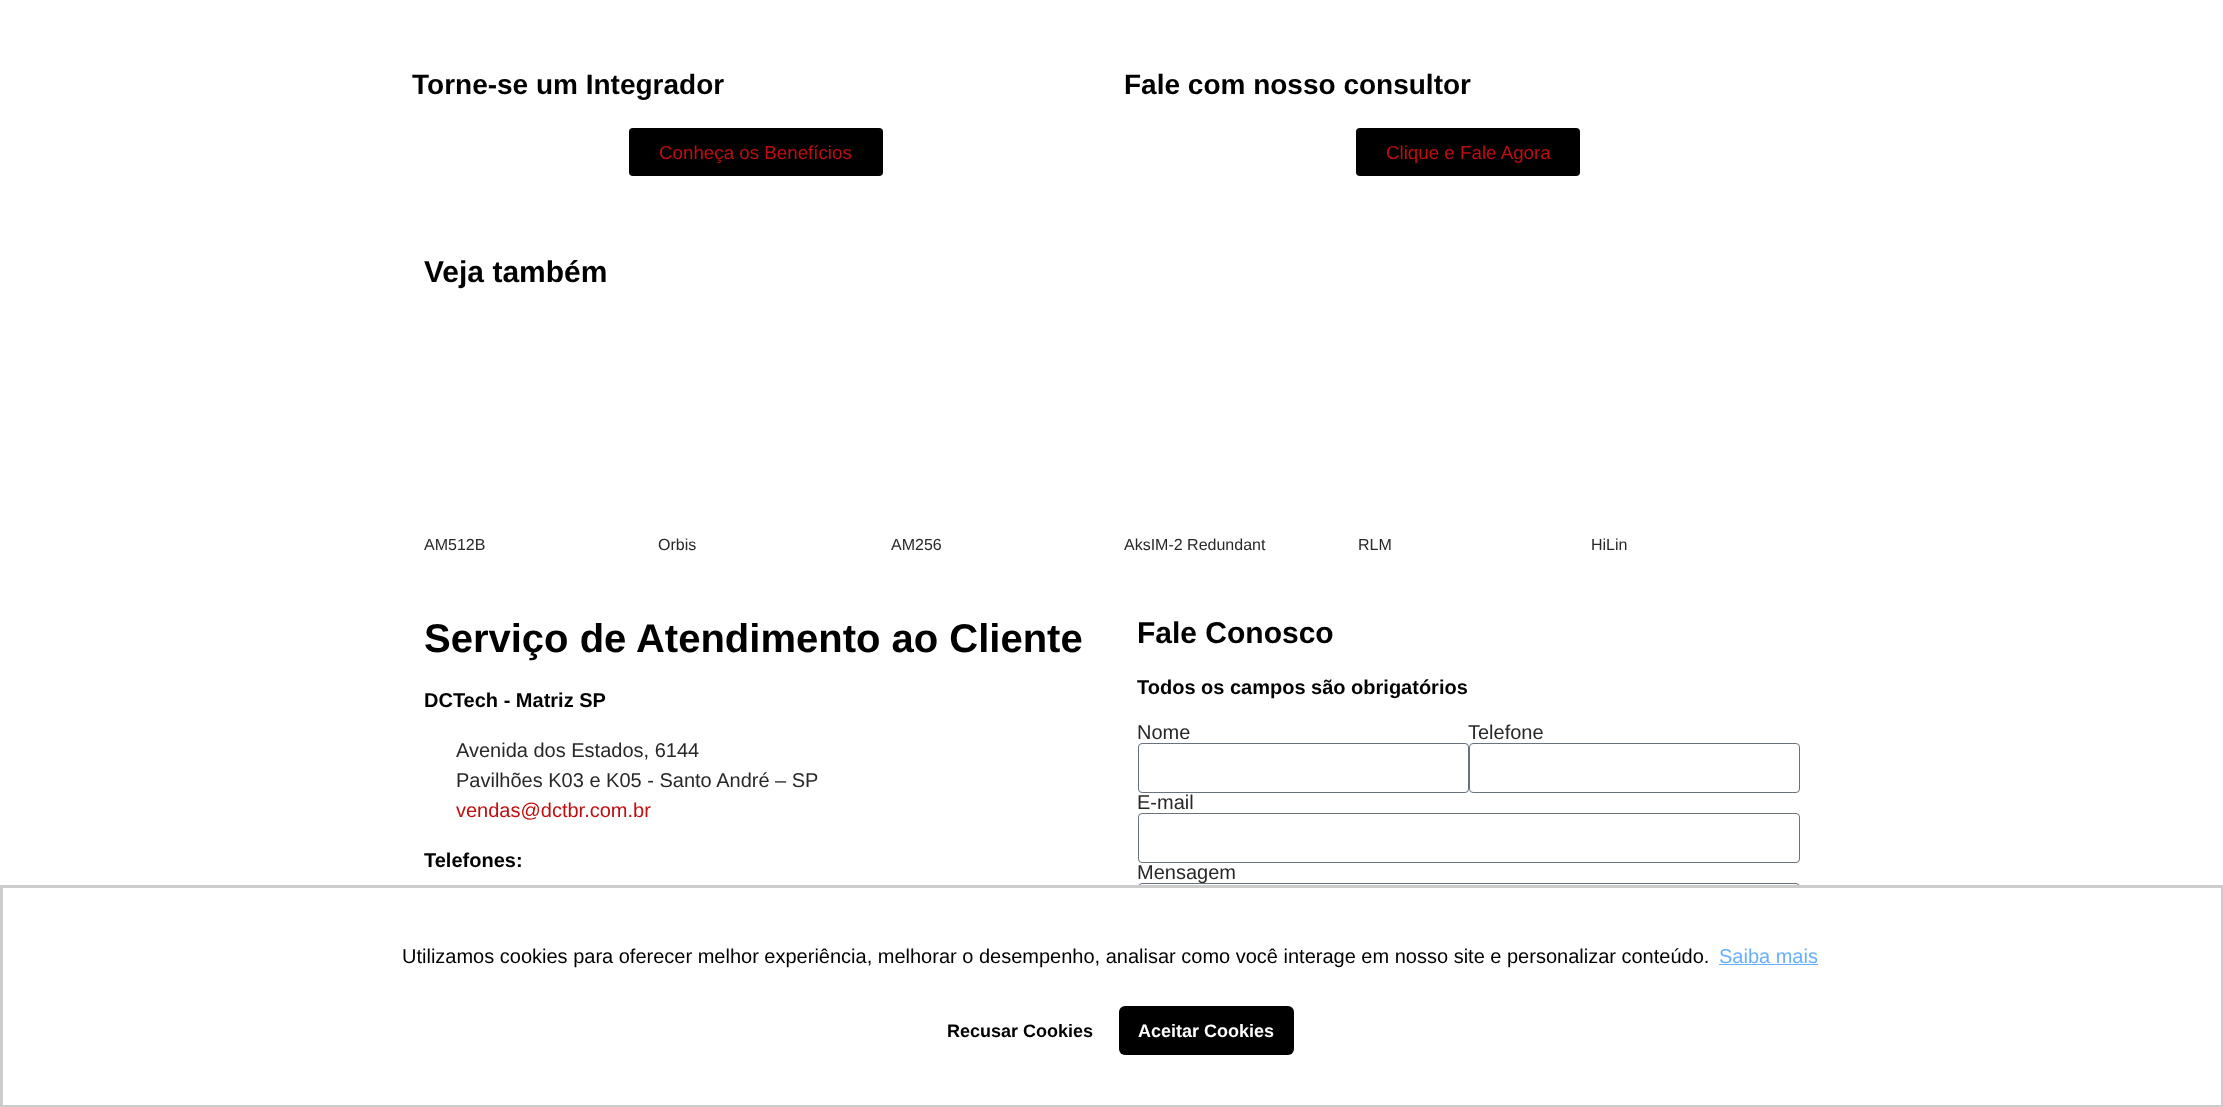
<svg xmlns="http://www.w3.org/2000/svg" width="2223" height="1107">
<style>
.a{font:bold 28px Liberation Sans;fill:#000}
.b{font:18.75px Liberation Sans;fill:#c00d0e}
.c{font:bold 30px Liberation Sans;fill:#000}
.d{font:16px Liberation Sans;fill:#282828}
.e{font:bold 40px Liberation Sans;fill:#000}
.f{font:bold 20px Liberation Sans;fill:#000}
.g{font:20px Liberation Sans;fill:#282828}
.h{font:20px Liberation Sans;fill:#c00d0e}
.i{font:20px Liberation Sans;fill:#000}
.j{font:20px Liberation Sans;fill:#66b0ff}
.k{font:bold 18px Liberation Sans;fill:#000}
.l{font:bold 18px Liberation Sans;fill:#fff}
</style>
<rect width="100%" height="100%" fill="#fff"/>
<rect fill="#000" x="629" y="128" width="254" height="48" rx="4"/>
<rect fill="#000" x="1356" y="128" width="224" height="48" rx="4"/>
<rect fill="none" stroke="#69727d" x="1138.5" y="743.5" width="330" height="49" rx="3.5"/>
<rect fill="none" stroke="#69727d" x="1469.5" y="743.5" width="330" height="49" rx="3.5"/>
<rect fill="none" stroke="#69727d" x="1138.5" y="813.5" width="661" height="49" rx="3.5"/>
<text class="a" x="412" y="94">Torne-se um Integrador</text>
<text class="b" x="659" y="159">Conheça os Benefícios</text>
<text class="a" x="1124" y="94">Fale com nosso consultor</text>
<text class="b" x="1386" y="159">Clique e Fale Agora</text>
<text class="c" x="424" y="282">Veja também</text>
<text class="d" x="424" y="550">AM512B</text>
<text class="d" x="658" y="550">Orbis</text>
<text class="d" x="891" y="550">AM256</text>
<text class="d" x="1124" y="550">AksIM-2 Redundant</text>
<text class="d" x="1358" y="550">RLM</text>
<text class="d" x="1591" y="550">HiLin</text>
<text class="e" x="424" y="652">Serviço de Atendimento ao Cliente</text>
<text class="f" x="424" y="707">DCTech - Matriz SP</text>
<text class="g" x="456" y="757">Avenida dos Estados, 6144</text>
<text class="g" x="456" y="787">Pavilhões K03 e K05 - Santo André – SP</text>
<text class="h" x="456" y="817">vendas@dctbr.com.br</text>
<text class="f" x="424" y="867">Telefones:</text>
<text class="c" x="1137" y="643">Fale Conosco</text>
<text class="f" x="1137" y="694">Todos os campos são obrigatórios</text>
<text class="g" x="1137" y="739">Nome</text>
<text class="g" x="1468" y="739">Telefone</text>
<text class="g" x="1137" y="809">E-mail</text>
<text class="g" x="1137" y="879">Mensagem</text>
<rect fill="none" stroke="#69727d" x="1138.5" y="883.5" width="661" height="171" rx="3.5"/>
<path fill="#fff" d="M1138 888h662v167H1138z"/>
<path fill="none" stroke="#ccc" stroke-width="3" d="M1.5 886.5h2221v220H1.5z"/>
<text class="i" x="402" y="963">Utilizamos cookies para oferecer melhor experiência, melhorar o desempenho, analisar como você interage em nosso site e personalizar conteúdo.</text>
<text class="j" x="1719" y="963">Saiba mais</text>
<path fill="#66b0ff" d="M1719 964h99v1H1719z"/>
<text class="k" x="947" y="1037">Recusar Cookies</text>
<rect fill="#000" x="1119" y="1006" width="175" height="49" rx="6"/>
<text class="l" x="1138" y="1037">Aceitar Cookies</text>
</svg>
